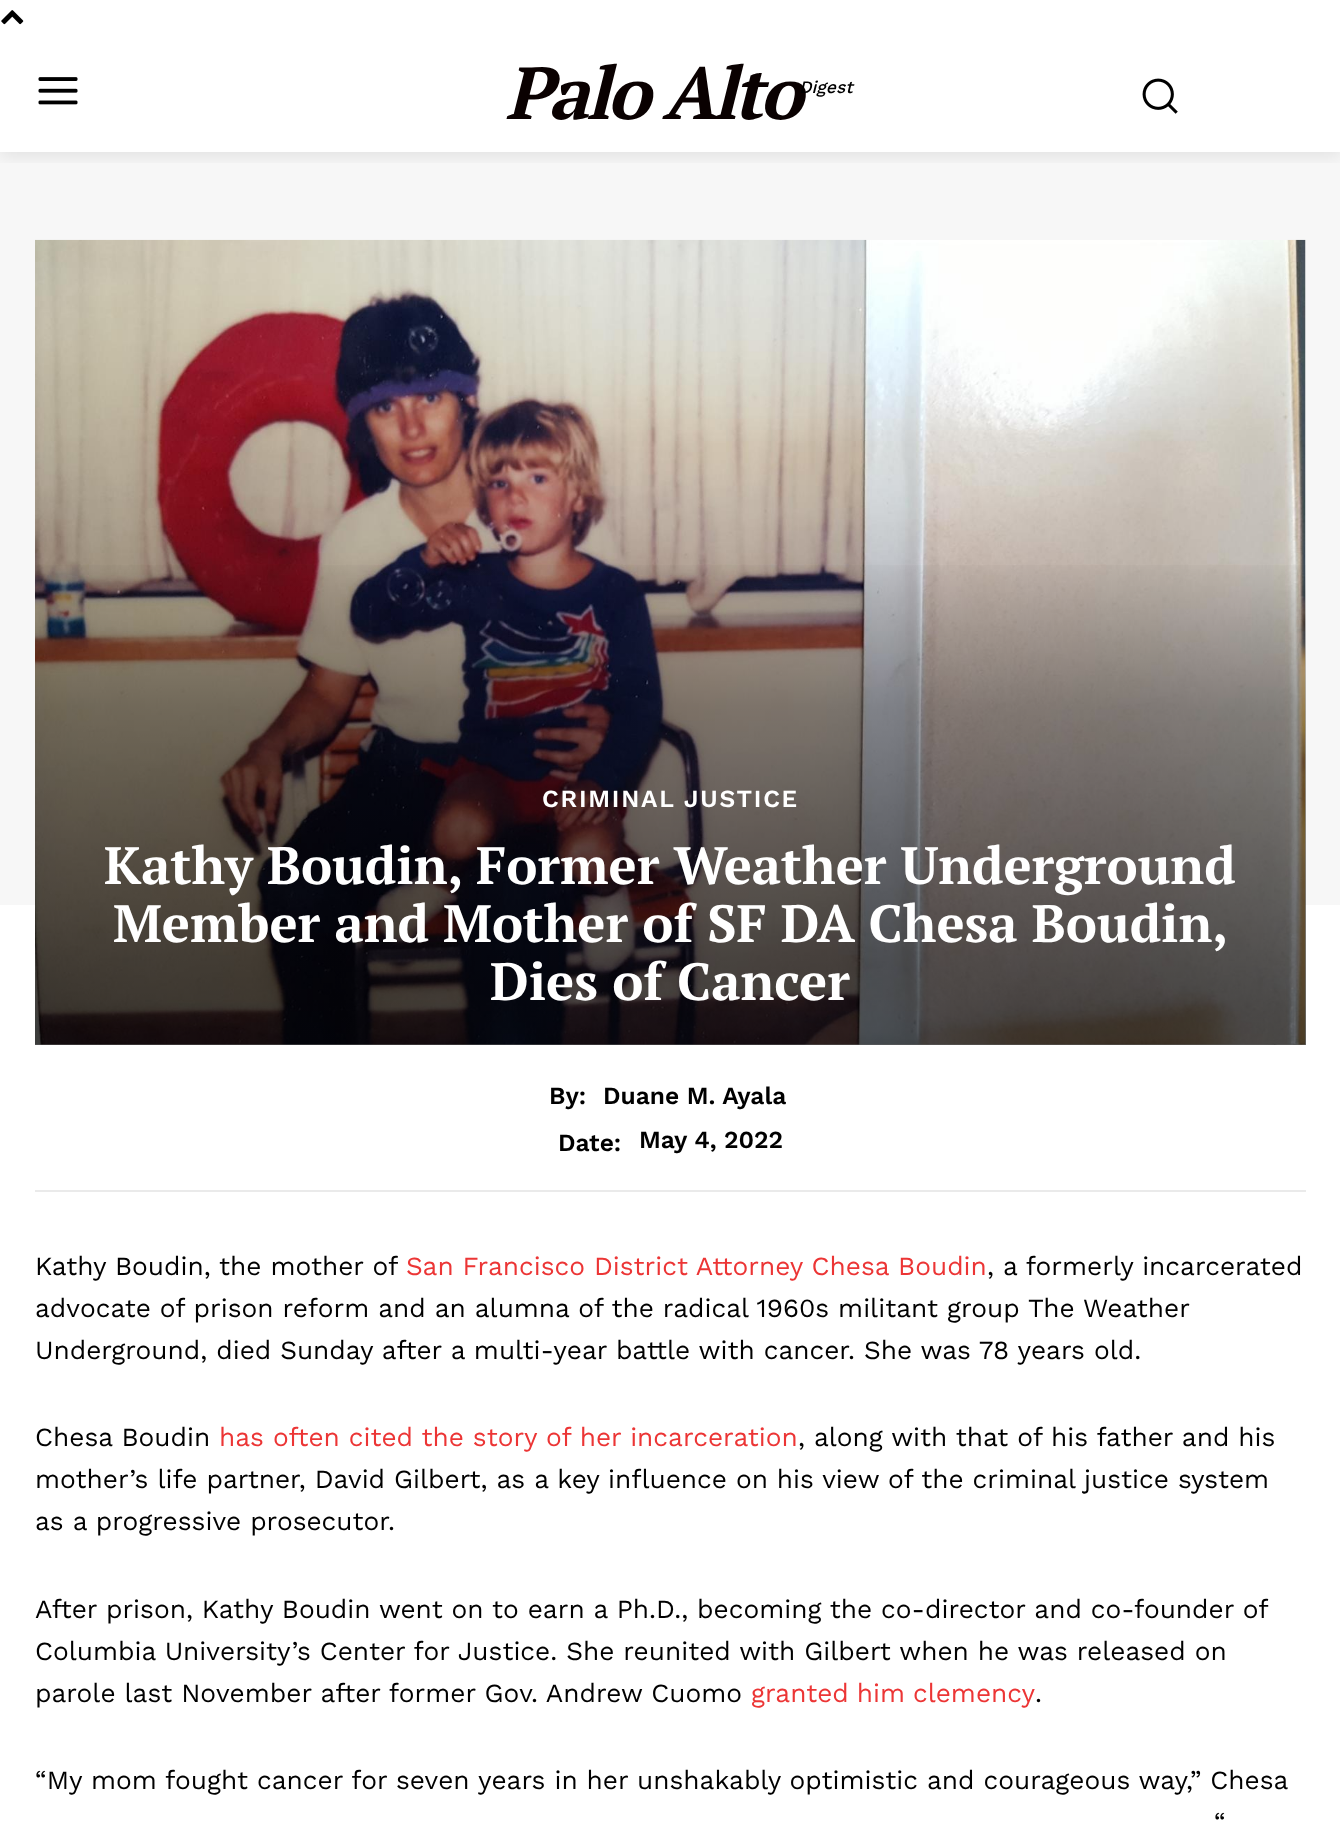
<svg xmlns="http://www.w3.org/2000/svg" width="1340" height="1824">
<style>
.a{font:italic bold 73.5px PT Serif;letter-spacing:-3.5px;fill:#0a0101}
.b{font:italic 500 17.5px Work Sans;fill:#000}
.c{font:600 24.5px Work Sans;letter-spacing:1.75px;fill:#fff}
.d{font:bold 52.5px PT Serif;fill:#fff}
.e{font:600 24.5px Work Sans;fill:#000}
.f{font:26.25px Work Sans;fill:#000}
.g{font:26.25px Work Sans;fill:#ec3535}
</style>
<defs>
<clipPath id="clip1"><path d="M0 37h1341v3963H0z"/></clipPath>
<clipPath id="clip2"><path d="M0 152h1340v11H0z"/></clipPath>
<linearGradient id="g1" gradientUnits="userSpaceOnUse" x1="670" y1="1045" x2="670" y2="240"><stop offset="0" stop-color="#000" stop-opacity="0.6"/><stop offset="0.42" stop-color="#000" stop-opacity="0.3"/><stop offset="0.61" stop-color="#000" stop-opacity="0"/><stop offset="1" stop-color="#000" stop-opacity="0"/></linearGradient>
</defs>
<rect width="100%" height="100%" fill="#fff"/>
<image href="1.png" x="1" y="10" width="23" height="15"/>
<image href="2.png" x="38" y="77" width="40" height="28"/>
<image href="3.png" x="1142" y="78" width="36" height="36"/>
<path fill="#f7f7f7" d="M0 152h1340v753H0z"/>
<g clip-path="url(#clip1)">
<g clip-path="url(#clip2)">
<path fill="#00000017" filter="blur(9px)" d="M0 40h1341v116H0z"/>
</g>
</g>
<image href="4.png" x="35" y="239" width="1271" height="806"/>
<path fill="url(#g1)" d="M35 565h1271v480H35z"/>
<path fill="#eaeaea" d="M35 1190h1271v2H35z"/>
<text class="a" x="505" y="119">Palo Alto</text>
<text class="b" x="799" y="93">Digest</text>
<text class="c" x="542" y="807">CRIMINAL JUSTICE</text>
<text class="d" x="104" y="884">Kathy Boudin, Former Weather Underground</text>
<text class="d" x="113" y="942">Member and Mother of SF DA Chesa Boudin,</text>
<text class="d" x="490" y="1000">Dies of Cancer</text>
<text class="e" x="549" y="1104">By:</text>
<text class="e" x="603" y="1104">Duane M. Ayala</text>
<text class="e" x="558" y="1151">Date:</text>
<text class="e" x="639" y="1148">May 4, 2022</text>
<text class="f" x="35" y="1275">Kathy Boudin, the mother of</text>
<text class="g" x="406" y="1275">San Francisco District Attorney Chesa Boudin</text>
<text class="f" x="987" y="1275">, a formerly incarcerated</text>
<text class="f" x="35" y="1317">advocate of prison reform and an alumna of the radical 1960s militant group The Weather</text>
<text class="f" x="35" y="1359">Underground, died Sunday after a multi-year battle with cancer. She was 78 years old.</text>
<text class="f" x="35" y="1446">Chesa Boudin</text>
<text class="g" x="219" y="1446">has often cited the story of her incarceration</text>
<text class="f" x="798" y="1446">, along with that of his father and his</text>
<text class="f" x="35" y="1488">mother’s life partner, David Gilbert, as a key influence on his view of the criminal justice system</text>
<text class="f" x="35" y="1530">as a progressive prosecutor.</text>
<text class="f" x="35" y="1618">After prison, Kathy Boudin went on to earn a Ph.D., becoming the co-director and co-founder of</text>
<text class="f" x="35" y="1660">Columbia University’s Center for Justice. She reunited with Gilbert when he was released on</text>
<text class="f" x="35" y="1702">parole last November after former Gov. Andrew Cuomo</text>
<text class="g" x="751" y="1702" word-spacing="-1">granted him clemency</text>
<text class="f" x="1035" y="1702">.</text>
<text class="f" x="35" y="1789">“My mom fought cancer for seven years in her unshakably optimistic and courageous way,” Chesa</text>
<text class="f" x="1214" y="1831">“</text>
</svg>
